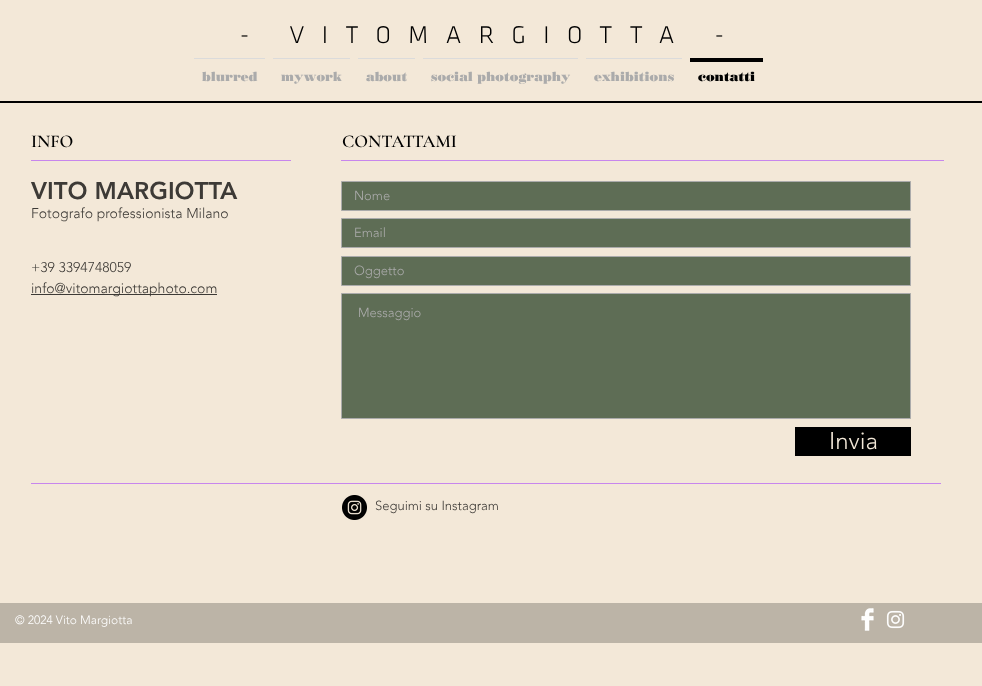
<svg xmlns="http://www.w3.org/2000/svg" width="982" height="686">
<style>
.a{font:300 25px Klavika;letter-spacing:17.5px;fill:#000}
.b{font:900 13px 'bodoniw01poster';fill:#ababab}
.c{font:900 13px 'bodoniw01poster';fill:#000}
.d{font:600 18px Cormorant Garamond;fill:#000}
.e{font:900 24px 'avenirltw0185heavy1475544';fill:#3d3a36}
.f{font:300 14px 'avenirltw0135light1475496';fill:#3d3a36}
.g{font:300 13px 'avenirltw0135light1475496';fill:#ababab}
.h{font:300 24px 'avenirltw0135light1475496';fill:#f3e8d8}
.i{font:300 13px 'avenirltw0135light1475496';fill:#3d3a36}
.j{font:300 12px 'avenirltw0135light1475496';fill:#fff}
</style>
<rect width="100%" height="100%" fill="#f3e8d8"/>
<path fill="#dbdbdb" d="M194 58h71v1H194z"/>
<path fill="#dbdbdb" d="M273 58h77v1H273z"/>
<path fill="#dbdbdb" d="M358 58h57v1H358z"/>
<path fill="#dbdbdb" d="M423 58h155v1H423z"/>
<path fill="#dbdbdb" d="M586 58h96v1H586z"/>
<path fill="#000" d="M690 58h73v4H690z"/>
<path fill="#000" d="M0 101h982v2H0z"/>
<path fill="#c786ed" d="M31 160h260v1H31z"/>
<path fill="#c786ed" d="M341 160h603v1H341z"/>
<path fill="#3d3a36" d="M31 294h186v1H31z"/>
<path fill="#5e6d55" stroke="#ababab" d="M341.5 181.5h569v29H341.5z"/>
<path fill="#5e6d55" stroke="#ababab" d="M341.5 218.5h569v29H341.5z"/>
<path fill="#5e6d55" stroke="#ababab" d="M341.5 256.5h569v29H341.5z"/>
<path fill="#5e6d55" stroke="#ababab" d="M341.5 293.5h569v125H341.5z"/>
<path fill="#000" d="M795 427h116v29H795z"/>
<path fill="#c786ed" d="M31 483h910v1H31z"/>
<image href="1.png" x="342" y="495" width="25" height="25"/>
<path fill="#bcb4a7" d="M0 603h982v40H0z"/>
<image href="2.png" x="861" y="608" width="13" height="23"/>
<image href="3.png" x="886" y="610" width="19" height="19"/>
<text class="a" x="240" y="43">- VITOMARGIOTTA -</text>
<text class="b" x="202" y="81">blurred</text>
<text class="b" x="281" y="81">mywork</text>
<text class="b" x="366" y="81">about</text>
<text class="b" x="431" y="81">social photography</text>
<text class="b" x="594" y="81">exhibitions</text>
<text class="c" x="698" y="81">contatti</text>
<text class="d" x="31" y="147">INFO</text>
<text class="d" x="342" y="147">CONTATTAMI</text>
<text class="e" x="31" y="199">VITO MARGIOTTA</text>
<text class="f" x="31" y="218">Fotografo professionista Milano</text>
<text class="f" x="31" y="272">+39 3394748059</text>
<text class="f" x="31" y="293">info@vitomargiottaphoto.com</text>
<text class="g" x="354" y="200">Nome</text>
<text class="g" x="354" y="237">Email</text>
<text class="g" x="354" y="275">Oggetto</text>
<text class="g" x="358" y="317">Messaggio</text>
<text class="h" x="829" y="449">Invia</text>
<text class="i" x="375" y="510">Seguimi su Instagram</text>
<text class="j" x="15" y="624">© 2024 Vito Margiotta</text>
</svg>
